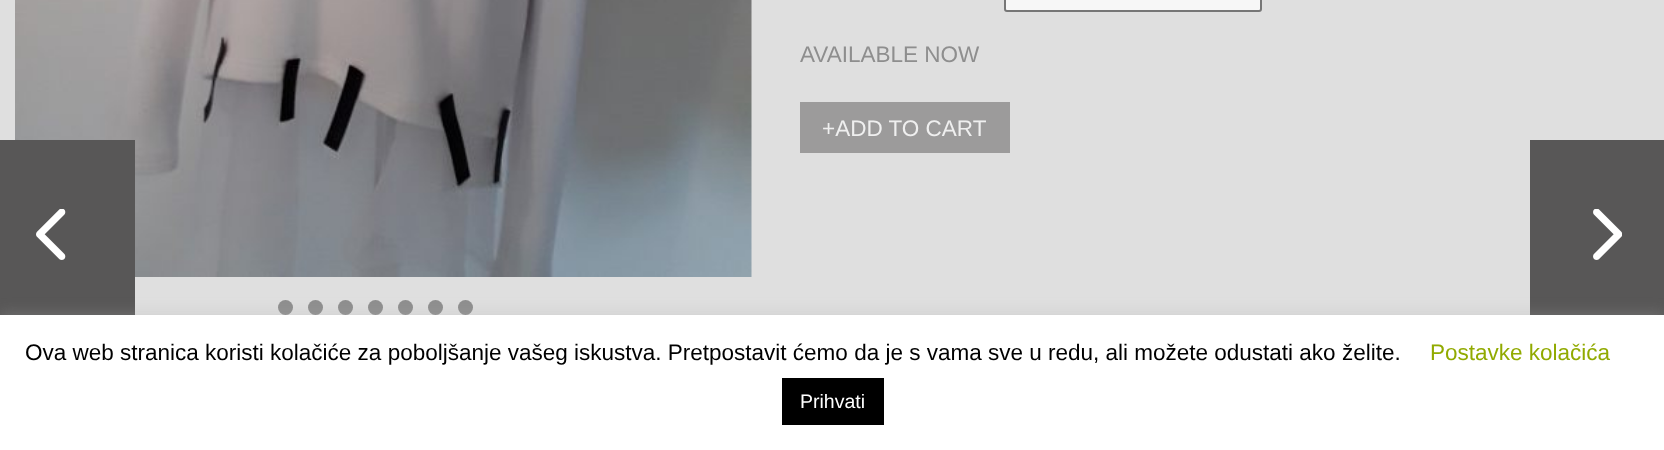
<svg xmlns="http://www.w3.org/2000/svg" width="1664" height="450">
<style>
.a{font:22.5px Liberation Sans;fill:#8e8e8e}
.b{font:22.5px Liberation Sans;fill:#efefef}
.c{font:22.5px Liberation Sans;fill:#000}
.d{font:22.5px Liberation Sans;fill:#91aa00}
.e{font:19.5px Liberation Sans;fill:#fff}
</style>
<rect width="100%" height="100%" fill="#dfdfdf"/>
<image href="1.png" x="15" y="0" width="737" height="277"/>
<circle fill="#8e8e8e" cx="285.5" cy="307.5" r="7.5"/>
<circle fill="#8e8e8e" cx="315.5" cy="307.5" r="7.5"/>
<circle fill="#8e8e8e" cx="345.5" cy="307.5" r="7.5"/>
<circle fill="#8e8e8e" cx="375.5" cy="307.5" r="7.5"/>
<circle fill="#8e8e8e" cx="405.5" cy="307.5" r="7.5"/>
<circle fill="#8e8e8e" cx="435.5" cy="307.5" r="7.5"/>
<circle fill="#8e8e8e" cx="465.5" cy="307.5" r="7.5"/>
<rect fill="#f7f7f7" stroke="#767676" stroke-width="2" x="1005" y="-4" width="256" height="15" rx="2"/>
<path fill="#9c9b9b" d="M800 102h210v51H800z"/>
<path fill="#585757" d="M0 140h135v175H0z"/>
<image href="2.png" x="36" y="209" width="30" height="51"/>
<path fill="#585757" d="M1530 140h134v175H1530z"/>
<image href="3.png" x="1593" y="209" width="29" height="51"/>
<path fill="#acabab4d" filter="blur(7.5px)" d="M0 314h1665v135H0z"/>
<path fill="#fff" d="M0 315h1664v135H0z"/>
<path fill="#000" d="M782 378h102v47H782z"/>
<text class="a" x="800" y="62">AVAILABLE NOW</text>
<text class="b" x="822" y="136">+ADD TO CART</text>
<text class="c" x="25" y="360">Ova web stranica koristi kolačiće za poboljšanje vašeg iskustva. Pretpostavit ćemo da je s vama sve u redu, ali možete odustati ako želite.</text>
<text class="d" x="1430" y="360">Postavke kolačića</text>
<text class="e" x="800" y="408">Prihvati</text>
</svg>
